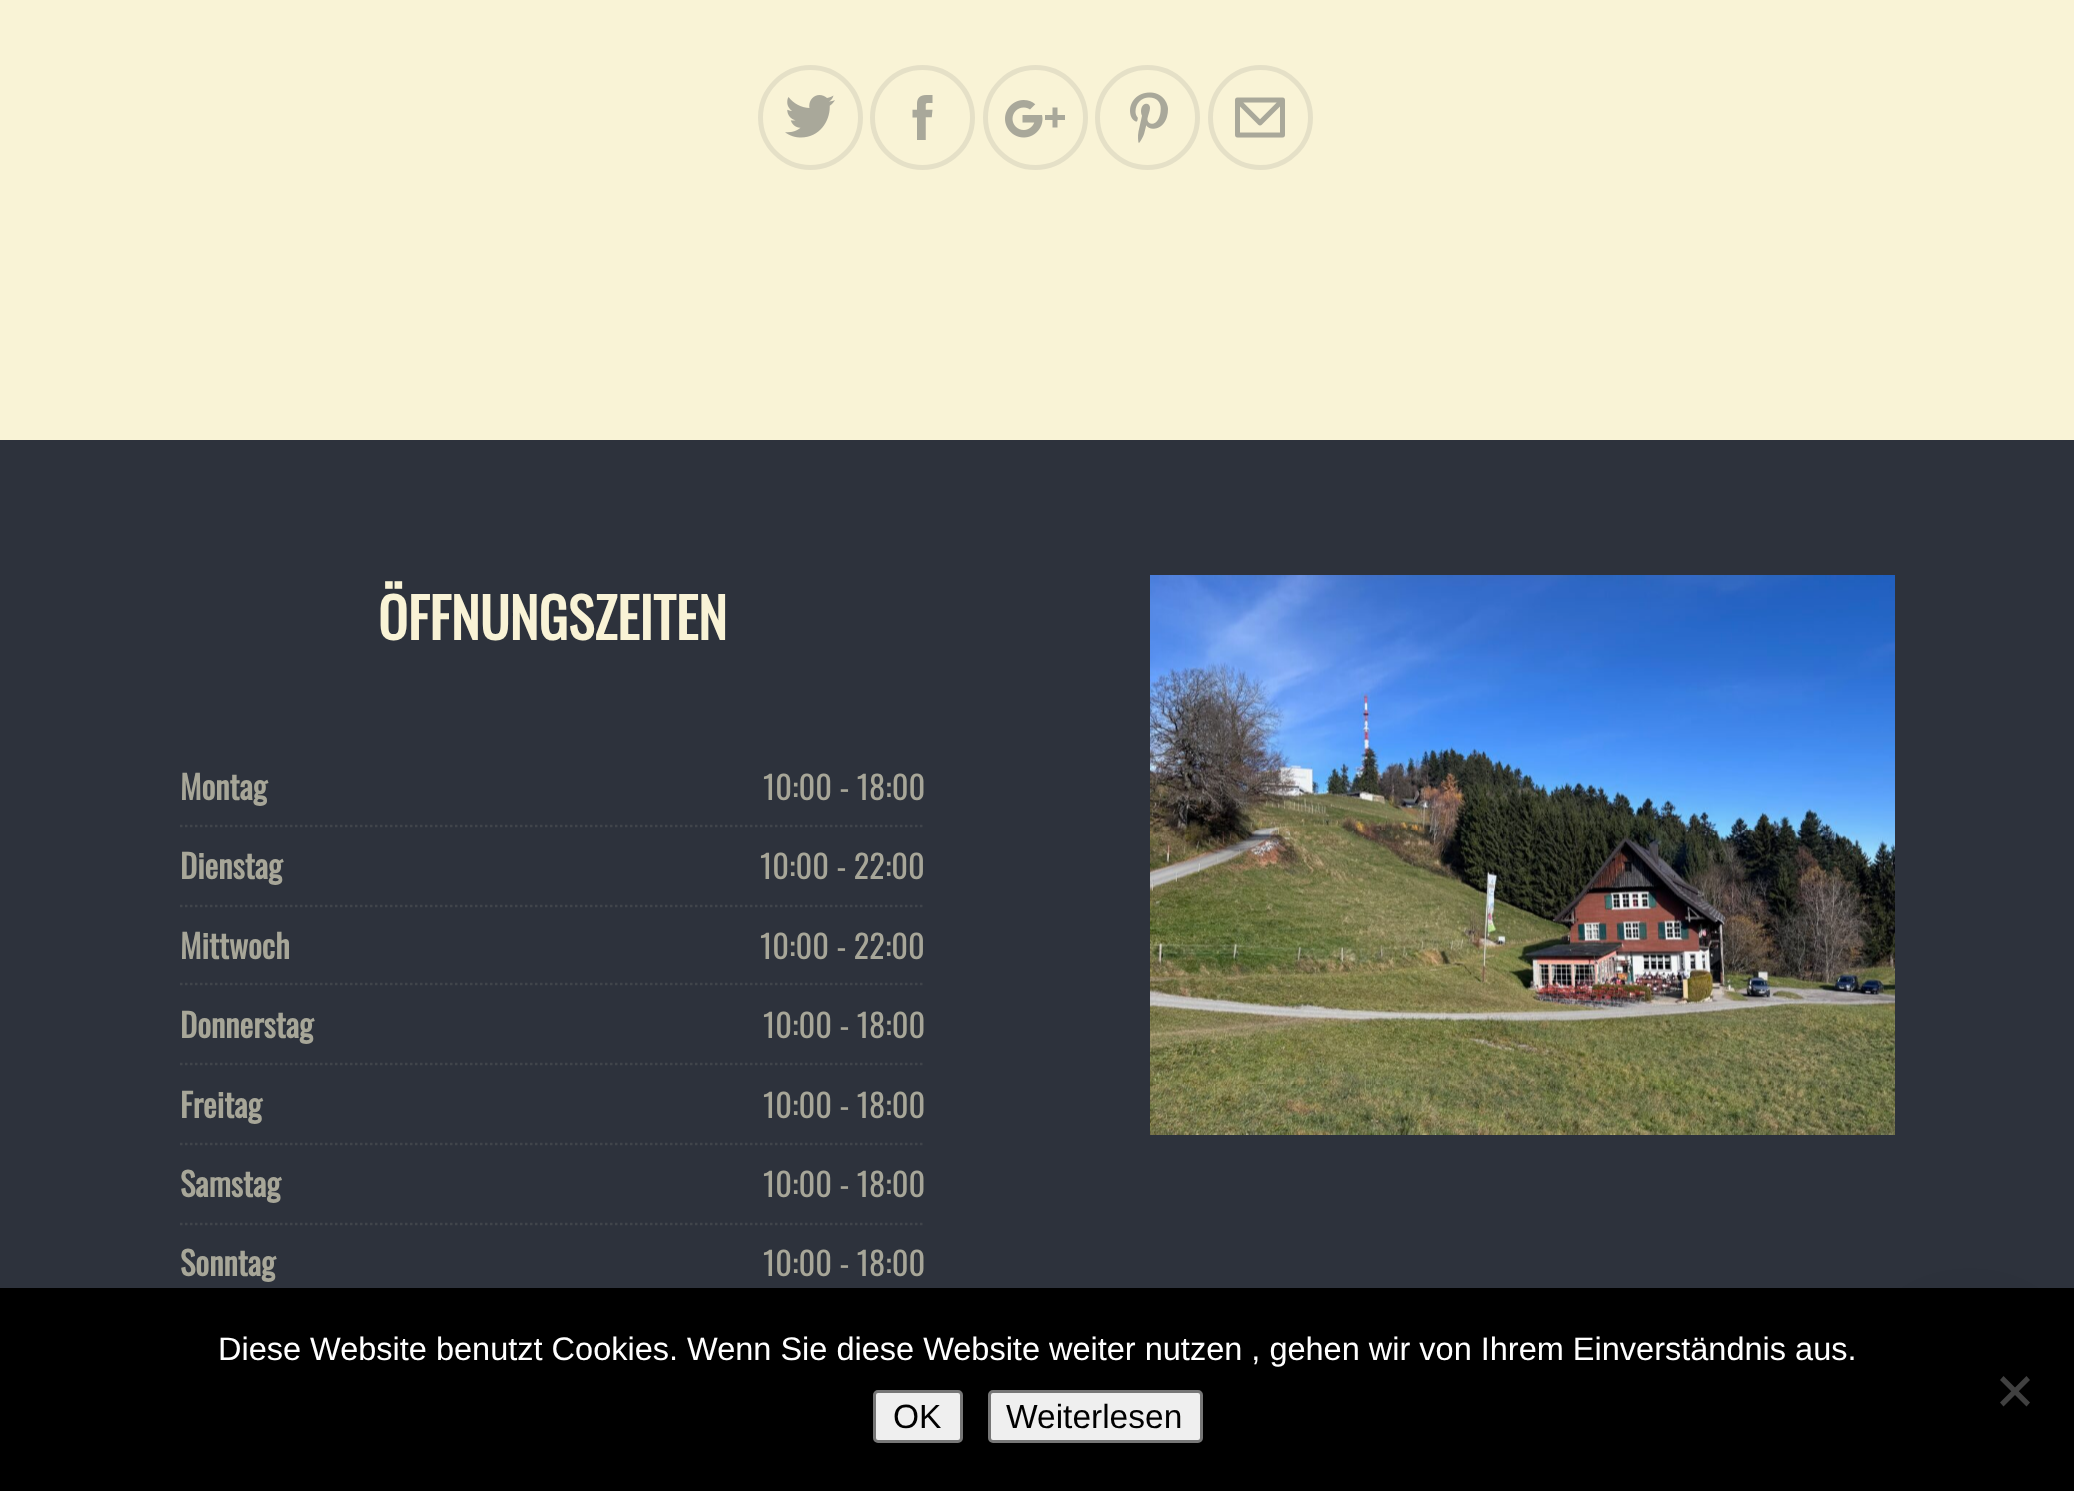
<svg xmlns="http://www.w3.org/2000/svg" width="2074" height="1491">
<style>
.a{font:bold 55px Oswald;fill:#f9f3d6}
.b{font:bold 32.5px Oswald;fill:#a7a698}
.c{font:32.5px Oswald;fill:#a7a698}
.d{font:32.5px Liberation Sans;fill:#fff}
.e{font:33.5px Liberation Sans;fill:#000}
</style>
<rect width="100%" height="100%" fill="#f9f3d6"/>
<image href="1.png" x="785" y="95" width="50" height="43"/>
<circle fill="none" stroke="#e5e0c7" stroke-width="5" cx="810.5" cy="117.5" r="50"/>
<image href="2.png" x="912" y="95" width="21" height="45"/>
<circle fill="none" stroke="#e5e0c7" stroke-width="5" cx="922.5" cy="117.5" r="50"/>
<image href="3.png" x="1005" y="100" width="60" height="38"/>
<circle fill="none" stroke="#e5e0c7" stroke-width="5" cx="1035.5" cy="117.5" r="50"/>
<image href="4.png" x="1130" y="92" width="38" height="51"/>
<circle fill="none" stroke="#e5e0c7" stroke-width="5" cx="1147.5" cy="117.5" r="50"/>
<image href="5.png" x="1235" y="97" width="50" height="41"/>
<circle fill="none" stroke="#e5e0c7" stroke-width="5" cx="1260.5" cy="117.5" r="50"/>
<path fill="#2d323c" d="M0 440h2074v848H0z"/>
<path fill="none" stroke="#41454b" stroke-width="2.5" stroke-dasharray="2.5 2.5" d="M180 826h745"/>
<path fill="none" stroke="#41454b" stroke-width="2.5" stroke-dasharray="2.5 2.5" d="M180 906h745"/>
<path fill="none" stroke="#41454b" stroke-width="2.5" stroke-dasharray="2.5 2.5" d="M180 984h745"/>
<path fill="none" stroke="#41454b" stroke-width="2.5" stroke-dasharray="2.5 2.5" d="M180 1064h745"/>
<path fill="none" stroke="#41454b" stroke-width="2.5" stroke-dasharray="2.5 2.5" d="M180 1144h745"/>
<path fill="none" stroke="#41454b" stroke-width="2.5" stroke-dasharray="2.5 2.5" d="M180 1224h745"/>
<image href="6.png" x="1150" y="575" width="745" height="560"/>
<rect fill="#08080e33" filter="blur(22.5px)" x="1895" y="1313" width="150" height="150" rx="75"/>
<path fill="#000" d="M0 1288h2074v203H0z"/>
<path fill="#404040" d="M2026.5 1376l3.5 4l-26.5 26.5l-3.5-4z"/>
<path fill="#404040" d="M2000 1380l3.5-4l26.5 26.5l-3.5 4z"/>
<rect fill="#efefef" stroke="#767676" stroke-width="3" x="874.5" y="1391.5" width="87" height="50" rx="3.5"/>
<rect fill="#efefef" stroke="#767676" stroke-width="3" x="989.5" y="1391.5" width="212" height="50" rx="3.5"/>
<text class="a" x="378" y="640">ÖFFNUNGSZEITEN</text>
<text class="b" x="180" y="800">Montag</text>
<text class="c" x="763" y="800">10:00 - 18:00</text>
<text class="b" x="180" y="879">Dienstag</text>
<text class="c" x="760" y="879">10:00 - 22:00</text>
<text class="b" x="180" y="959">Mittwoch</text>
<text class="c" x="760" y="959">10:00 - 22:00</text>
<text class="b" x="180" y="1038">Donnerstag</text>
<text class="c" x="763" y="1038">10:00 - 18:00</text>
<text class="b" x="180" y="1118">Freitag</text>
<text class="c" x="763" y="1118">10:00 - 18:00</text>
<text class="b" x="180" y="1197">Samstag</text>
<text class="c" x="763" y="1197">10:00 - 18:00</text>
<text class="b" x="180" y="1276">Sonntag</text>
<text class="c" x="763" y="1276">10:00 - 18:00</text>
<text class="d" x="218" y="1360">Diese Website benutzt Cookies. Wenn Sie diese Website weiter nutzen , gehen wir von Ihrem Einverständnis aus.</text>
<text class="e" x="893" y="1428">OK</text>
<text class="e" x="1006" y="1428">Weiterlesen</text>
</svg>
